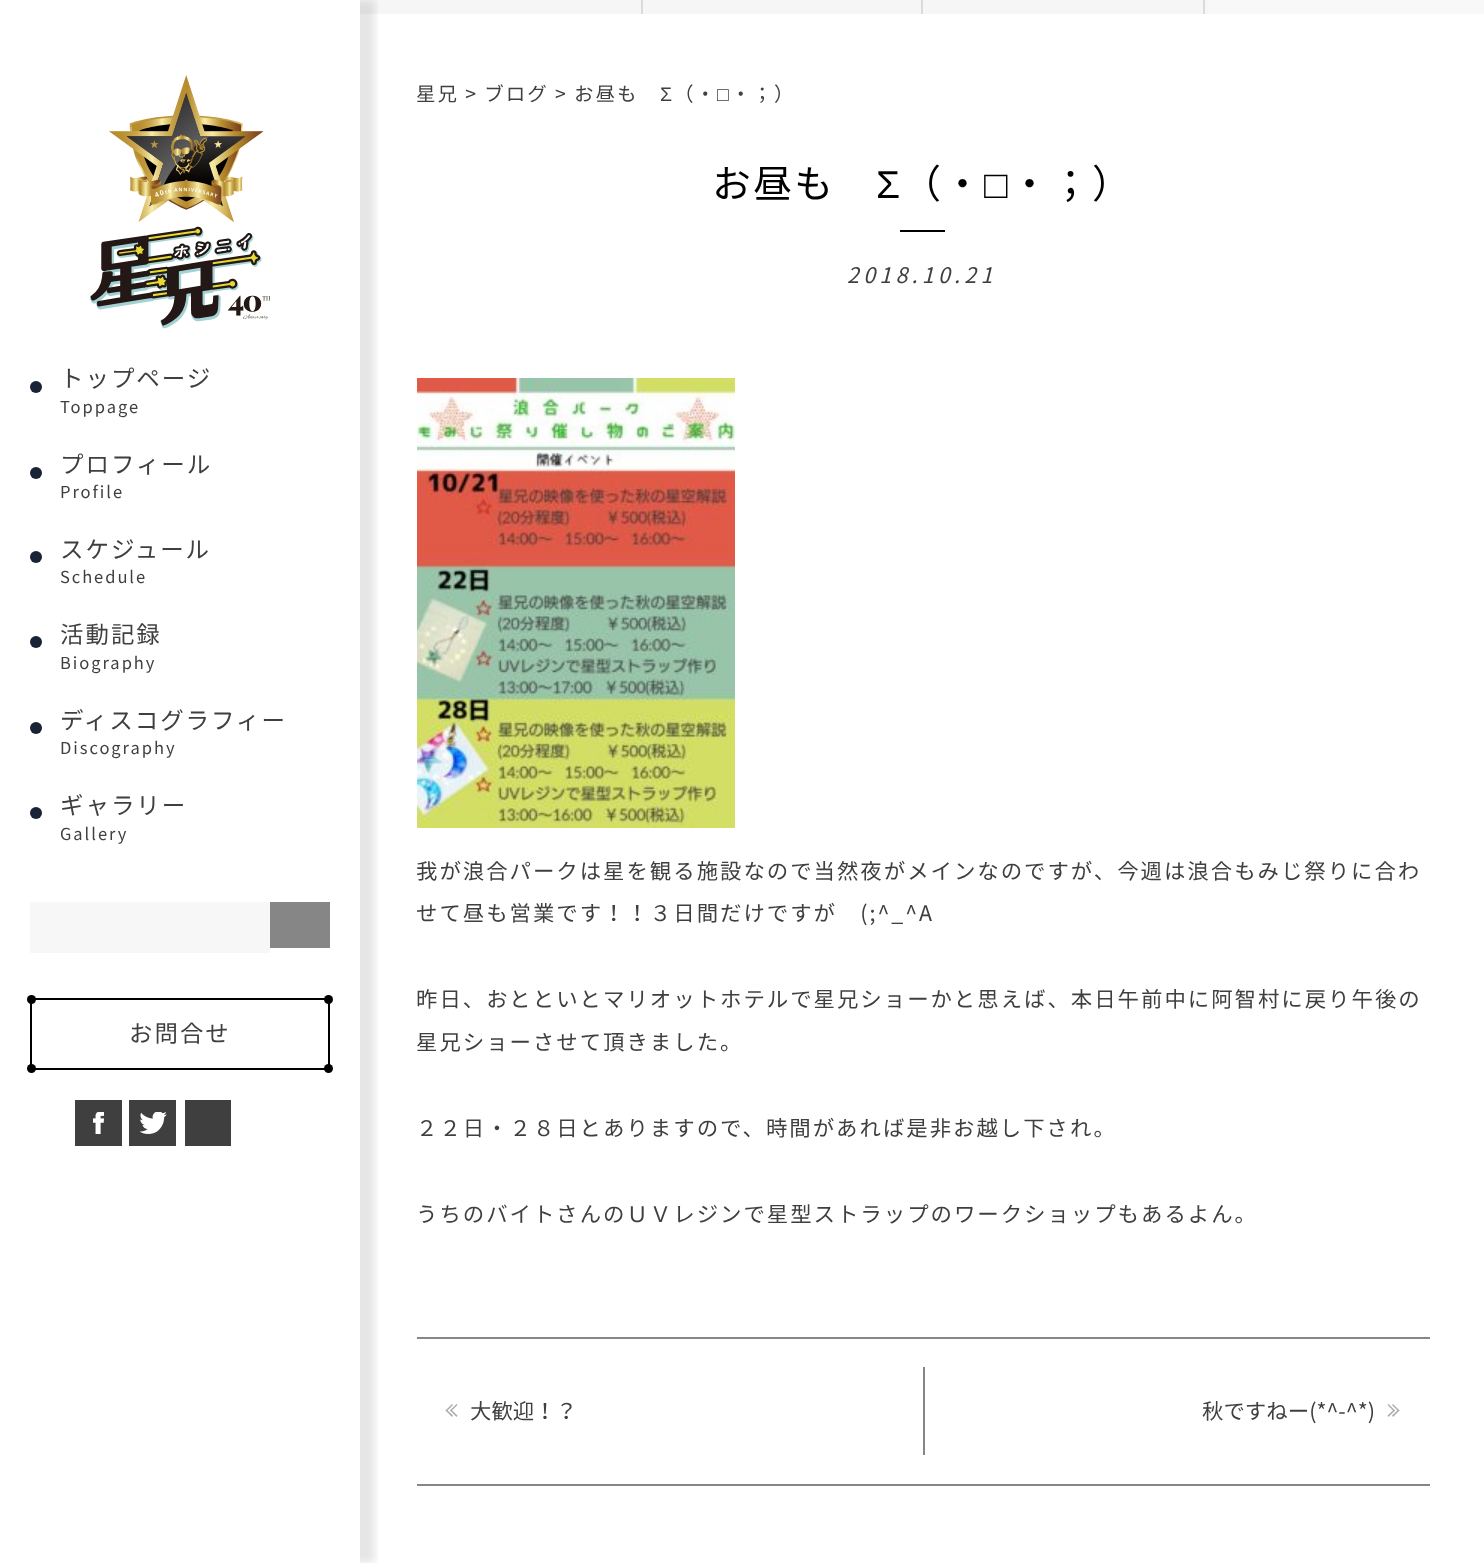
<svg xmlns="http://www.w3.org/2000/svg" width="1484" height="1563">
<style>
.a{font:23.5px Noto Sans JP;letter-spacing:1.95px;fill:#3f3f3f}
.b{font:16.5px Noto Sans JP;letter-spacing:1.95px;fill:#3f3f3f}
.c{font:19.5px Noto Sans JP;letter-spacing:1.95px;fill:#3f3f3f}
.d{font:19.5px Liberation Sans;letter-spacing:1.95px;fill:#3f3f3f}
.e{font:39px Noto Sans JP;letter-spacing:1.95px;fill:#000}
.f{font:39px Liberation Sans;letter-spacing:1.95px;fill:#000}
.g{font:italic 21.45px Noto Sans JP;letter-spacing:4.25px;fill:#3f3f3f}
.h{font:21.45px Noto Sans JP;letter-spacing:1.95px;fill:#3f3f3f}
.i{font:21.45px Noto Sans JP;fill:#3f3f3f}
</style>
<defs>
<clipPath id="clip1"><path d="M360 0h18v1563H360z"/></clipPath>
</defs>
<rect width="100%" height="100%" fill="#fff"/>
<path fill="#f6f6f6" d="M360 0h848v14H360z"/>
<path fill="#dbdbdb" d="M641 0h2v14H641z"/>
<path fill="#dbdbdb" d="M921 0h2v14H921z"/>
<path fill="#dbdbdb" d="M1203 0h2v14H1203z"/>
<path fill="#f8f8f8" d="M1208 0h276v14H1208z"/>
<g clip-path="url(#clip1)">
<path fill="#0000001a" filter="blur(4px)" d="M15 0h360v1563H15z"/>
</g>
<image href="1.png" x="90" y="75" width="180" height="254"/>
<circle fill="#192336" cx="36" cy="387" r="6"/>
<circle fill="#192336" cx="36" cy="473" r="6"/>
<circle fill="#192336" cx="36" cy="557" r="6"/>
<circle fill="#192336" cx="36" cy="642" r="6"/>
<circle fill="#192336" cx="36" cy="728" r="6"/>
<circle fill="#192336" cx="36" cy="813" r="6"/>
<path fill="#f7f7f7" d="M30 902h240v51H30z"/>
<path fill="#868686" d="M270 902h60v46H270z"/>
<path fill="none" stroke="#000" stroke-width="2" d="M31 999h298v70H31z"/>
<circle fill="#000" cx="31.5" cy="999.5" r="4.5"/>
<circle fill="#000" cx="328.5" cy="999.5" r="4.5"/>
<circle fill="#000" cx="31.5" cy="1068.5" r="4.5"/>
<circle fill="#000" cx="328.5" cy="1068.5" r="4.5"/>
<path fill="#3f3f3f" d="M75 1100h47v46H75z"/>
<image href="2.png" x="93" y="1112" width="11" height="22"/>
<path fill="#3f3f3f" d="M129 1100h47v46H129z"/>
<image href="3.png" x="140" y="1112" width="27" height="22"/>
<path fill="#3f3f3f" d="M185 1100h46v46H185z"/>
<path fill="#000" d="M900 230h45v2H900z"/>
<image href="4.png" x="417" y="378" width="318" height="450"/>
<path fill="#868686" d="M417 1337h1013v2H417z"/>
<path fill="#868686" d="M417 1484h1013v2H417z"/>
<path fill="#acacac" d="M446.5 1409.5l6.5 6l-1 1.5l-6.5-6.5z"/>
<path fill="#acacac" d="M452 1404l1 1l-6.5 6.5l-1-1z"/>
<path fill="#acacac" d="M451 1409.5l6.5 6l-1 1.5l-6.5-6.5z"/>
<path fill="#acacac" d="M456.5 1404l1 1l-6.5 6.5l-1-1z"/>
<path fill="#868686" d="M923 1367h2v88H923z"/>
<path fill="#acacac" d="M1393 1404l6.5 6.5l-1 1l-6.5-6.5z"/>
<path fill="#acacac" d="M1398.5 1409.5l1 1l-6.5 6.5l-1-1.5z"/>
<path fill="#acacac" d="M1388.5 1404l6.5 6.5l-1 1l-6.5-6.5z"/>
<path fill="#acacac" d="M1394 1409.5l1 1l-6.5 6.5l-1-1.5z"/>
<text class="a" x="60" y="387">トップページ</text>
<text class="b" x="60" y="413">Toppage</text>
<text class="a" x="60" y="473">プロフィール</text>
<text class="b" x="60" y="498">Profile</text>
<text class="a" x="60" y="558">スケジュール</text>
<text class="b" x="60" y="583">Schedule</text>
<text class="a" x="60" y="643">活動記録</text>
<text class="b" x="60" y="669">Biography</text>
<text class="a" x="60" y="729">ディスコグラフィー</text>
<text class="b" x="60" y="754">Discography</text>
<text class="a" x="60" y="814">ギャラリー</text>
<text class="b" x="60" y="840">Gallery</text>
<text class="a" x="129" y="1042">お問合せ</text>
<text class="c" x="416" y="101">星兄 &gt; ブログ &gt; お昼も</text>
<text class="d" x="660" y="101">Σ</text>
<text class="c" x="674" y="101">（・</text>
<text class="d" x="717" y="101">□</text>
<text class="c" x="731" y="101">・；）</text>
<text class="e" x="712" y="198">お昼も</text>
<text class="f" x="876" y="198">Σ</text>
<text class="e" x="902" y="198">（・</text>
<text class="f" x="984" y="198">□</text>
<text class="e" x="1010" y="198">・；）</text>
<text class="g" x="847" y="283">2018.10.21</text>
<text class="h" x="416" y="879">我が浪合パークは星を観る施設なので当然夜がメインなのですが、今週は浪合もみじ祭りに合わ</text>
<text class="h" x="416" y="921">せて昼も営業です！！３日間だけですが　(;^_^A</text>
<text class="h" x="416" y="1007">昨日、おとといとマリオットホテルで星兄ショーかと思えば、本日午前中に阿智村に戻り午後の</text>
<text class="h" x="416" y="1050">星兄ショーさせて頂きました。</text>
<text class="h" x="416" y="1136">２２日・２８日とありますので、時間があれば是非お越し下され。</text>
<text class="h" x="416" y="1222">うちのバイトさんのＵＶレジンで星型ストラップのワークショップもあるよん。</text>
<text class="i" x="470" y="1419">大歓迎！？</text>
<text class="i" x="1202" y="1419">秋ですねー(*^-^*)</text>
</svg>
